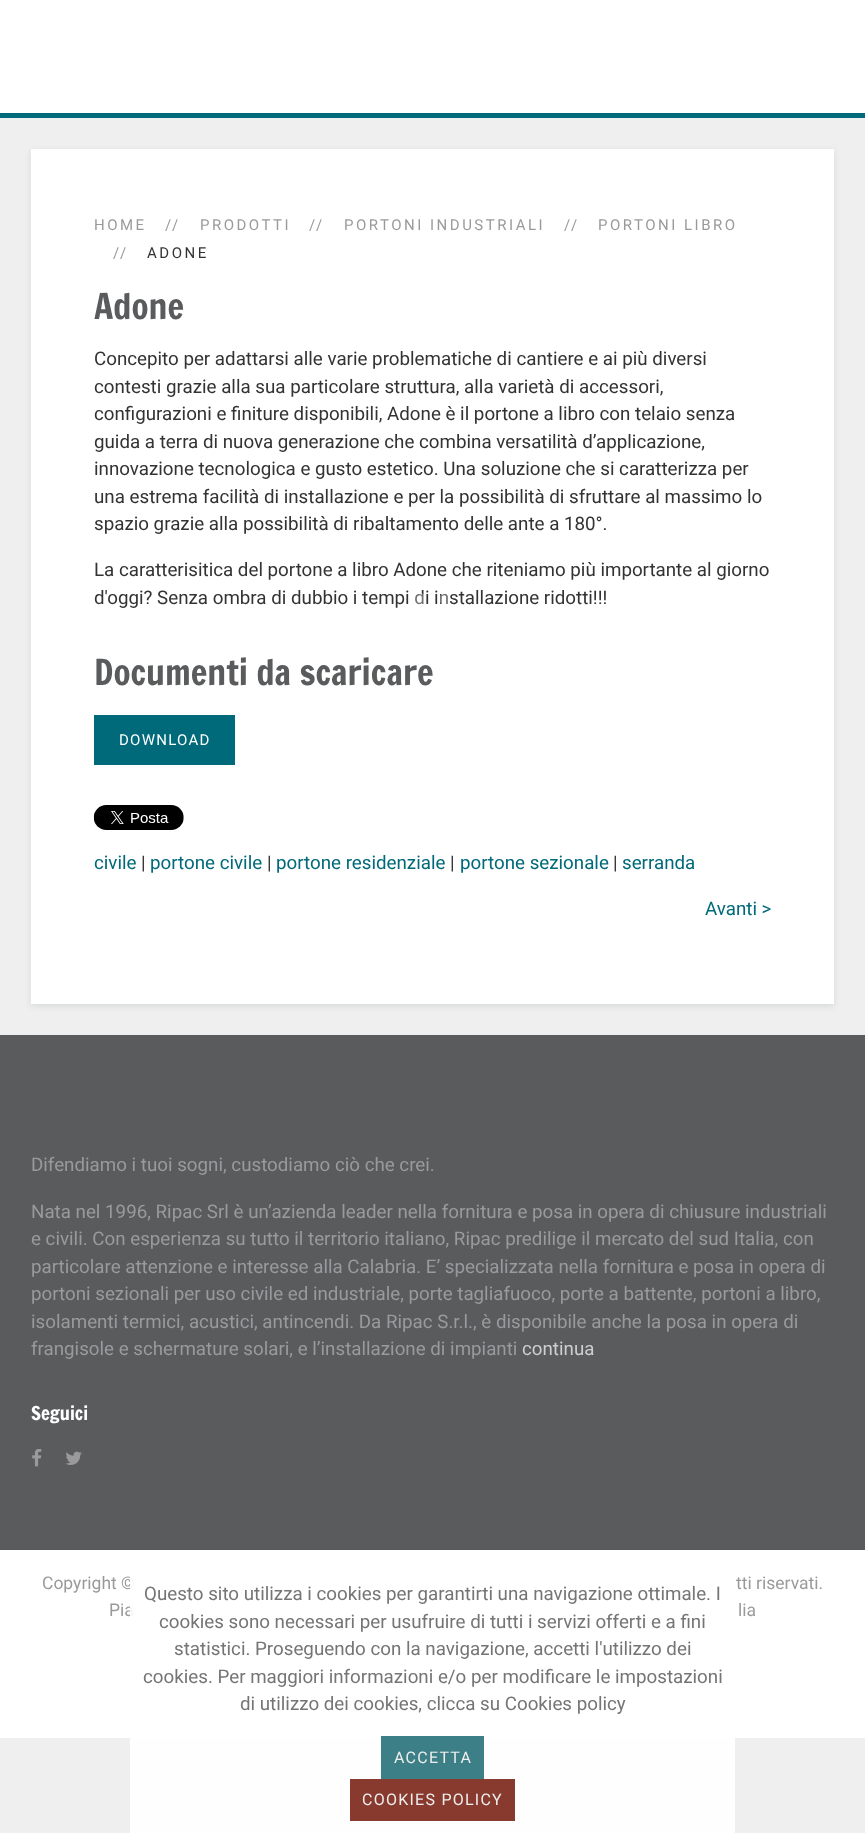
<svg xmlns="http://www.w3.org/2000/svg" width="865" height="1833">
<style>
.a{font:15px Roboto;letter-spacing:2.5px;fill:#9a9a9c}
.b{font:15px Roboto;letter-spacing:2.5px;fill:#333}
.c{font:35px Francois One;fill:#5a5b5d}
.d{font:18.75px Roboto;fill:#333}
.e{font:15px Roboto;letter-spacing:1.25px;fill:#fff}
.f{font:18.75px Roboto;fill:#00697a}
.g{font:18.75px Roboto;fill:#9a9a9c}
.h{font:18.75px Roboto;fill:#cecece}
.i{font:18.75px Francois One;fill:#fff}
.j{font:17.5px Roboto;fill:#9a9a9c}
.k{font:18.75px Roboto;fill:#757575}
.l{font:16px Roboto;letter-spacing:1.25px;fill:#eee}
</style>
<rect width="100%" height="100%" fill="#efefef"/>
<path fill="#fff" d="M0 0h865v113H0z"/>
<path fill="#00697a" d="M0 113h865v5H0z"/>
<path fill="#a0a7a94d" filter="blur(3px)" d="M31 151h803v855H31z"/>
<path fill="#fff" d="M31 149h803v855H31z"/>
<path fill="#00697a" d="M94 715h141v50H94z"/>
<image href="1.png" x="93" y="805" width="91" height="25"/>
<path fill="#5a5b5d" d="M0 1035h865v515H0z"/>
<image href="2.png" x="32" y="1449" width="10" height="18"/>
<image href="3.png" x="65" y="1451" width="17" height="14"/>
<path fill="#fff" d="M0 1550h865v188H0z"/>
<text class="a" x="94" y="230">HOME</text>
<text class="a" x="165" y="230">//</text>
<text class="a" x="200" y="230">PRODOTTI</text>
<text class="a" x="309" y="230">//</text>
<text class="a" x="344" y="230">PORTONI INDUSTRIALI</text>
<text class="a" x="564" y="230">//</text>
<text class="a" x="598" y="230">PORTONI LIBRO</text>
<text class="a" x="113" y="258">//</text>
<text class="b" x="147" y="258">ADONE</text>
<text class="c" x="94" y="319">Adone</text>
<text class="d" x="94" y="365">Concepito per adattarsi alle varie problematiche di cantiere e ai più diversi</text>
<text class="d" x="94" y="393">contesti grazie alla sua particolare struttura, alla varietà di accessori,</text>
<text class="d" x="94" y="420">configurazioni e finiture disponibili, Adone è il portone a libro con telaio senza</text>
<text class="d" x="94" y="448">guida a terra di nuova generazione che combina versatilità d’applicazione,</text>
<text class="d" x="94" y="475">innovazione tecnologica e gusto estetico. Una soluzione che si caratterizza per</text>
<text class="d" x="94" y="503">una estrema facilità di installazione e per la possibilità di sfruttare al massimo lo</text>
<text class="d" x="94" y="530">spazio grazie alla possibilità di ribaltamento delle ante a 180°.</text>
<text class="d" x="94" y="576">La caratterisitica del portone a libro Adone che riteniamo più importante al giorno</text>
<text class="d" x="94" y="604">d'oggi? Senza ombra di dubbio i tempi di installazione ridotti!!!</text>
<circle fill="#ffffff4d" cx="420" cy="599" r="6"/>
<circle fill="#ffffff4d" cx="445" cy="599" r="6"/>
<text class="c" x="94" y="685">Documenti da scaricare</text>
<text class="e" x="119" y="745">DOWNLOAD</text>
<text class="f" x="94" y="869">civile</text>
<text class="d" x="141" y="869">|</text>
<text class="f" x="150" y="869">portone civile</text>
<text class="d" x="267" y="869">|</text>
<text class="f" x="276" y="869">portone residenziale</text>
<text class="d" x="450" y="869">|</text>
<text class="f" x="460" y="869">portone sezionale</text>
<text class="d" x="613" y="869">|</text>
<text class="f" x="622" y="869">serranda</text>
<text class="f" x="705" y="915">Avanti &gt;</text>
<text class="g" x="31" y="1171">Difendiamo i tuoi sogni, custodiamo ciò che crei.</text>
<text class="g" x="31" y="1218">Nata nel 1996, Ripac Srl è un’azienda leader nella fornitura e posa in opera di chiusure industriali</text>
<text class="g" x="31" y="1245">e civili. Con esperienza su tutto il territorio italiano, Ripac predilige il mercato del sud Italia, con</text>
<text class="g" x="31" y="1273">particolare attenzione e interesse alla Calabria. E’ specializzata nella fornitura e posa in opera di</text>
<text class="g" x="31" y="1300">portoni sezionali per uso civile ed industriale, porte tagliafuoco, porte a battente, portoni a libro,</text>
<text class="g" x="31" y="1328">isolamenti termici, acustici, antincendi. Da Ripac S.r.l., è disponibile anche la posa in opera di</text>
<text class="g" x="31" y="1355">frangisole e schermature solari, e l’installazione di impianti</text>
<text class="h" x="522" y="1355">continua</text>
<text class="i" x="31" y="1420">Seguici</text>
<text class="j" x="42" y="1589">Copyright ©</text>
<text class="j" x="736" y="1589">tti riservati.</text>
<text class="j" x="109" y="1616">Pia</text>
<text class="j" x="738" y="1616">lia</text>
<path fill="#ffffffe6" d="M130 1577h605v256H130z"/>
<text class="k" x="144" y="1600">Questo sito utilizza i cookies per garantirti una navigazione ottimale. I</text>
<text class="k" x="159" y="1628">cookies sono necessari per usufruire di tutti i servizi offerti e a fini</text>
<text class="k" x="174" y="1655">statistici. Proseguendo con la navigazione, accetti l'utilizzo dei</text>
<text class="k" x="143" y="1683">cookies. Per maggiori informazioni e/o per modificare le impostazioni</text>
<text class="k" x="240" y="1710">di utilizzo dei cookies, clicca su Cookies policy</text>
<path fill="#3c7f86" d="M381 1736h103v43H381z"/>
<text class="l" x="394" y="1763">ACCETTA</text>
<path fill="#893a2e" d="M350 1779h165v42H350z"/>
<text class="l" x="362" y="1805">COOKIES POLICY</text>
</svg>
